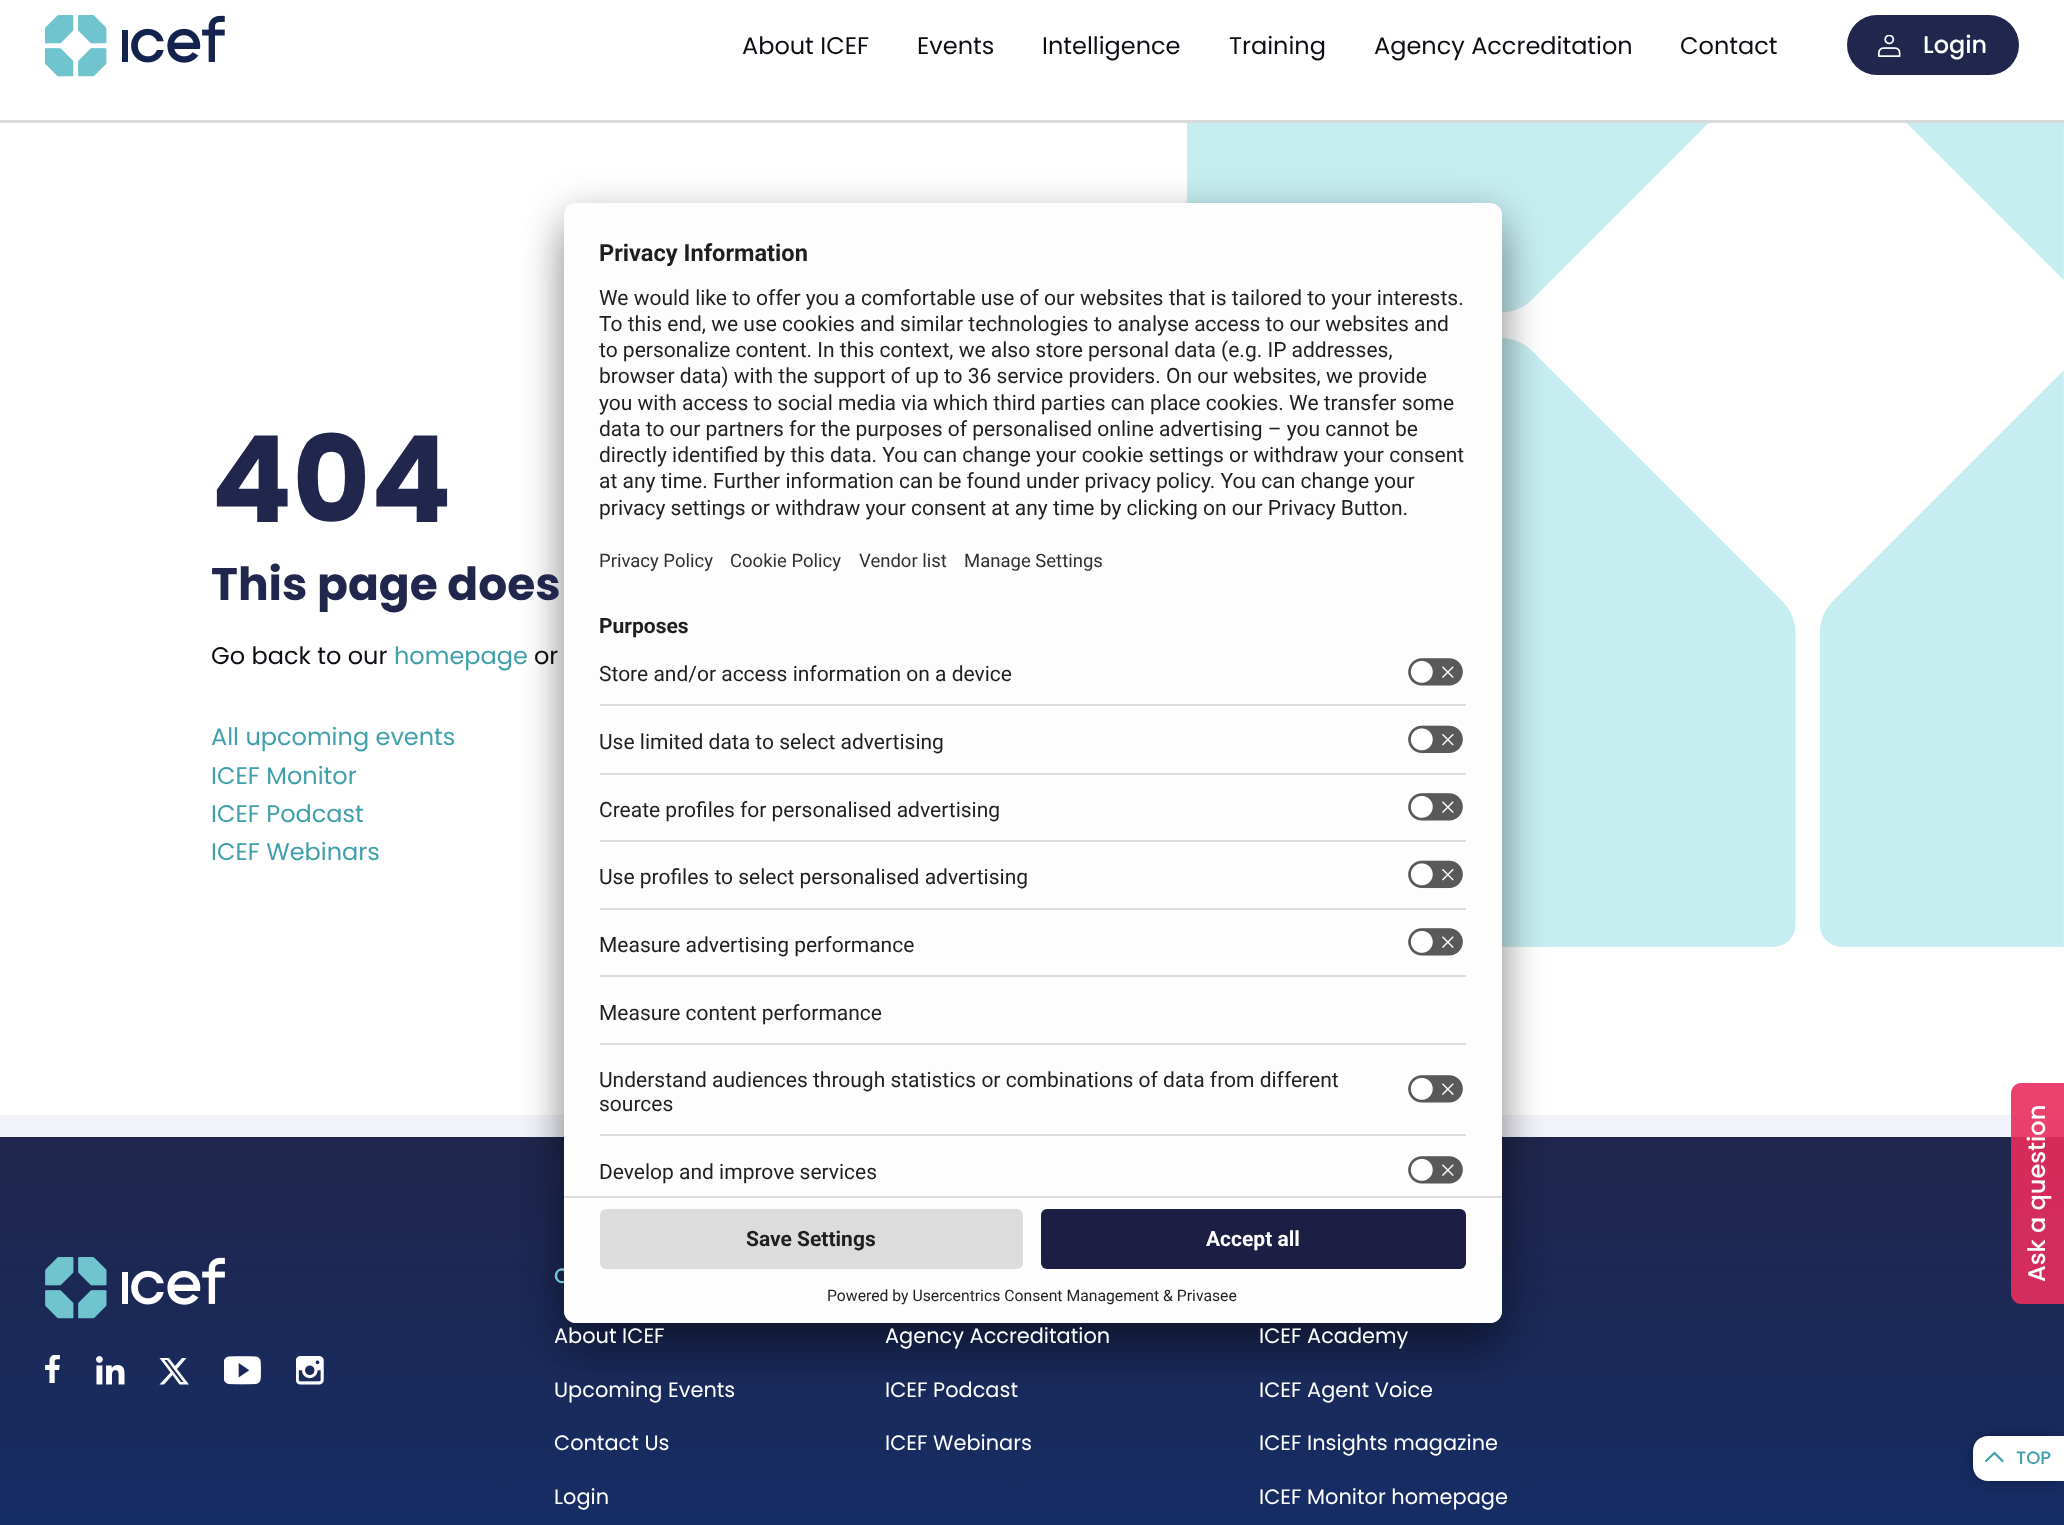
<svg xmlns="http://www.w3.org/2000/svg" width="2064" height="1525">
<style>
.a{font:24px Poppins;fill:#0c0d13}
.b{font:500 24px Poppins;fill:#fff}
.c{font:bold 120px Poppins;fill:#20264c}
.d{font:bold 45.5px Poppins;fill:#20264c}
.e{font:24px Poppins;fill:#3fa0ab}
.f{font:500 20.9px Poppins;fill:#6fc6d0}
.g{font:21px Roboto;fill:#1f1f1f}
.h{font:bold 21px Roboto;fill:#1f1f1f}
.i{font:18.5px Roboto;fill:#303030}
.j{font:bold 23.6px Roboto;fill:#1f1f1f}
.k{font:15.75px Roboto;fill:#1f1f1f}
.l{font:bold 21px Roboto;fill:#fff}
.m{font:20.9px Poppins;fill:#fff}
.n{font:500 18px Poppins;fill:#3fa0ab}
</style>
<defs>
<linearGradient id="g1" gradientUnits="userSpaceOnUse" x1="1032" y1="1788" x2="1032" y2="1137"><stop offset="0" stop-color="#0e3175"/><stop offset="1" stop-color="#20264c"/></linearGradient>
<clipPath id="clip1"><rect x="564" y="203" width="938" height="1120" rx="12"/></clipPath>
<clipPath id="clip2"><path d="M576 203h914c6.5 0 12 5.5 12 12v981h-938v-981c0-6.5 5.5-12 12-12z"/></clipPath>
</defs>
<rect width="100%" height="100%" fill="#fff"/>
<image href="1.png" x="45" y="15" width="180" height="62"/>
<rect fill="#20264c" x="1847" y="15" width="172" height="60" rx="30"/>
<image href="2.png" x="1878" y="35" width="23" height="22"/>
<path fill="#d9d9d9" d="M0 120h2064v3H0z"/>
<image href="3.png" x="1187" y="123" width="877" height="824"/>
<path fill="#f2f3fa" d="M0 1115h2064v22H0z"/>
<path fill="url(#g1)" d="M0 1137h2064v388H0z"/>
<rect fill="#0000004d" filter="blur(21px)" x="564" y="233" width="938" height="1120" rx="12"/>
<rect fill="#00000038" filter="blur(19.5px)" x="564" y="210" width="938" height="1121" rx="12"/>
<path fill="#e72d5de6" d="M2011 1293v-199c0-6 4-11 10-11h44v221h-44c-6 0-10-5-10-11z"/>
<image href="6.png" x="45" y="1257" width="180" height="62"/>
<image href="7.png" x="45" y="1355" width="15" height="28"/>
<image href="8.png" x="96" y="1356" width="29" height="29"/>
<path fill="#fff" fill-rule="evenodd" d="M186.5 1358h-4.5l-7 8l-6-8h-9.5l11 14.5l-11 12h4.5l8.5-9.5l7 9.5h9.5l-12-15.5zm-22 2l16.5 22h2.5l-16.5-22z"/>
<image href="9.png" x="224" y="1356" width="37" height="29"/>
<image href="10.png" x="296" y="1356" width="28" height="29"/>
<rect fill="#0000004d" filter="blur(6px)" x="1973" y="1436" width="91" height="45" rx="15"/>
<path fill="#fff" d="M1988 1436h76v45h-76c-8.5 0-15-6.5-15-15v-15c0-8.5 6.5-15 15-15z"/>
<path fill="none" stroke="#3fa0ab" stroke-width="2.3" stroke-linecap="round" stroke-linejoin="round" d="M1986 1461l8.5-8l8 8"/>
<text class="a" x="742" y="54">About ICEF</text>
<text class="a" x="917" y="54">Events</text>
<text class="a" x="1042" y="54">Intelligence</text>
<text class="a" x="1229" y="54">Training</text>
<text class="a" x="1374" y="54">Agency Accreditation</text>
<text class="a" x="1680" y="54">Contact</text>
<text class="b" x="1923" y="53">Login</text>
<text class="c" x="211" y="522">404</text>
<text class="d" x="211" y="600">This page does</text>
<text class="a" x="211" y="664">Go back to our</text>
<text class="e" x="394" y="664">homepage</text>
<text class="a" x="534" y="664">or</text>
<text class="e" x="211" y="745">All upcoming events</text>
<text class="e" x="211" y="784">ICEF Monitor</text>
<text class="e" x="211" y="822">ICEF Podcast</text>
<text class="e" x="211" y="860">ICEF Webinars</text>
<text class="b" x="2045" y="1282" transform="rotate(-90 2045 1282)">Ask a question</text>
<text class="f" x="554" y="1283">C</text>
<rect fill="#fdfdfd" x="564" y="203" width="938" height="1120" rx="12"/>
<g clip-path="url(#clip1)">
<g clip-path="url(#clip2)">
<path fill="#fdfdfd" d="M564 204h938v992H564z"/>
</g>
</g>
<image href="4.png" x="1408" y="1156" width="55" height="28"/>
<text class="g" x="599" y="1179">Develop and improve services</text>
<image href="4.png" x="1408" y="1075" width="55" height="28"/>
<text class="g" x="599" y="1111">sources</text>
<text class="g" x="599" y="1087">Understand audiences through statistics or combinations of data from different</text>
<path fill="#dcdcdc" d="M600 1134h866v2H600z"/>
<text class="g" x="599" y="1020">Measure content performance</text>
<path fill="#dcdcdc" d="M600 1043h866v2H600z"/>
<image href="4.png" x="1408" y="928" width="55" height="28"/>
<text class="g" x="599" y="952">Measure advertising performance</text>
<path fill="#dcdcdc" d="M600 975h866v2H600z"/>
<image href="5.png" x="1408" y="860" width="55" height="29"/>
<text class="g" x="599" y="884">Use profiles to select personalised advertising</text>
<path fill="#dcdcdc" d="M600 908h866v2H600z"/>
<image href="4.png" x="1408" y="793" width="55" height="28"/>
<text class="g" x="599" y="817">Create profiles for personalised advertising</text>
<path fill="#dcdcdc" d="M600 840h866v2H600z"/>
<image href="5.png" x="1408" y="725" width="55" height="29"/>
<text class="g" x="599" y="749">Use limited data to select advertising</text>
<path fill="#dcdcdc" d="M600 773h866v2H600z"/>
<image href="4.png" x="1408" y="658" width="55" height="28"/>
<text class="g" x="599" y="681">Store and/or access information on a device</text>
<path fill="#dcdcdc" d="M600 704h866v2H600z"/>
<text class="h" x="599" y="633">Purposes</text>
<g clip-path="url(#clip1)">
<g clip-path="url(#clip2)">
<path fill="#fdfdfd" d="M564 204h938v392H564z"/>
</g>
</g>
<text class="i" x="730" y="567">Cookie Policy</text>
<text class="i" x="599" y="567">Privacy Policy</text>
<text class="j" x="599" y="261">Privacy Information</text>
<text class="g" x="599" y="515">privacy settings or withdraw your consent at any time by clicking on our Privacy Button.</text>
<text class="g" x="599" y="488">at any time. Further information can be found under privacy policy. You can change your</text>
<text class="g" x="599" y="462">directly identified by this data. You can change your cookie settings or withdraw your consent</text>
<text class="g" x="599" y="436">data to our partners for the purposes of personalised online advertising – you cannot be</text>
<text class="g" x="599" y="410">you with access to social media via which third parties can place cookies. We transfer some</text>
<text class="g" x="599" y="383">browser data) with the support of up to 36 service providers. On our websites, we provide</text>
<text class="g" x="599" y="357">to personalize content. In this context, we also store personal data (e.g. IP addresses,</text>
<text class="g" x="599" y="331">To this end, we use cookies and similar technologies to analyse access to our websites and</text>
<text class="g" x="599" y="305">We would like to offer you a comfortable use of our websites that is tailored to your interests.</text>
<text class="i" x="964" y="567">Manage Settings</text>
<text class="i" x="859" y="567">Vendor list</text>
<path fill="#fdfdfd" d="M564 1196h938v115c0 6.5-5.5 12-12 12h-914c-6.5 0-12-5.5-12-12z"/>
<text class="k" x="827" y="1301">Powered by Usercentrics Consent Management &amp; Privasee</text>
<rect fill="#1d1e44" x="1041" y="1209" width="425" height="60" rx="6"/>
<text class="l" x="1206" y="1246">Accept all</text>
<rect fill="#dcdcdc" x="600" y="1209" width="423" height="60" rx="6"/>
<text class="h" x="746" y="1246">Save Settings</text>
<path fill="#dcdcdc" d="M564 1196h938v2H564z"/>
<text class="m" x="554" y="1343">About ICEF</text>
<text class="m" x="554" y="1397">Upcoming Events</text>
<text class="m" x="554" y="1450">Contact Us</text>
<text class="m" x="554" y="1504">Login</text>
<text class="m" x="885" y="1343">Agency Accreditation</text>
<text class="m" x="885" y="1397">ICEF Podcast</text>
<text class="m" x="885" y="1450">ICEF Webinars</text>
<text class="m" x="1259" y="1343">ICEF Academy</text>
<text class="m" x="1259" y="1397">ICEF Agent Voice</text>
<text class="m" x="1259" y="1450">ICEF Insights magazine</text>
<text class="m" x="1259" y="1504">ICEF Monitor homepage</text>
<text class="n" x="2016" y="1464">TOP</text>
</svg>
